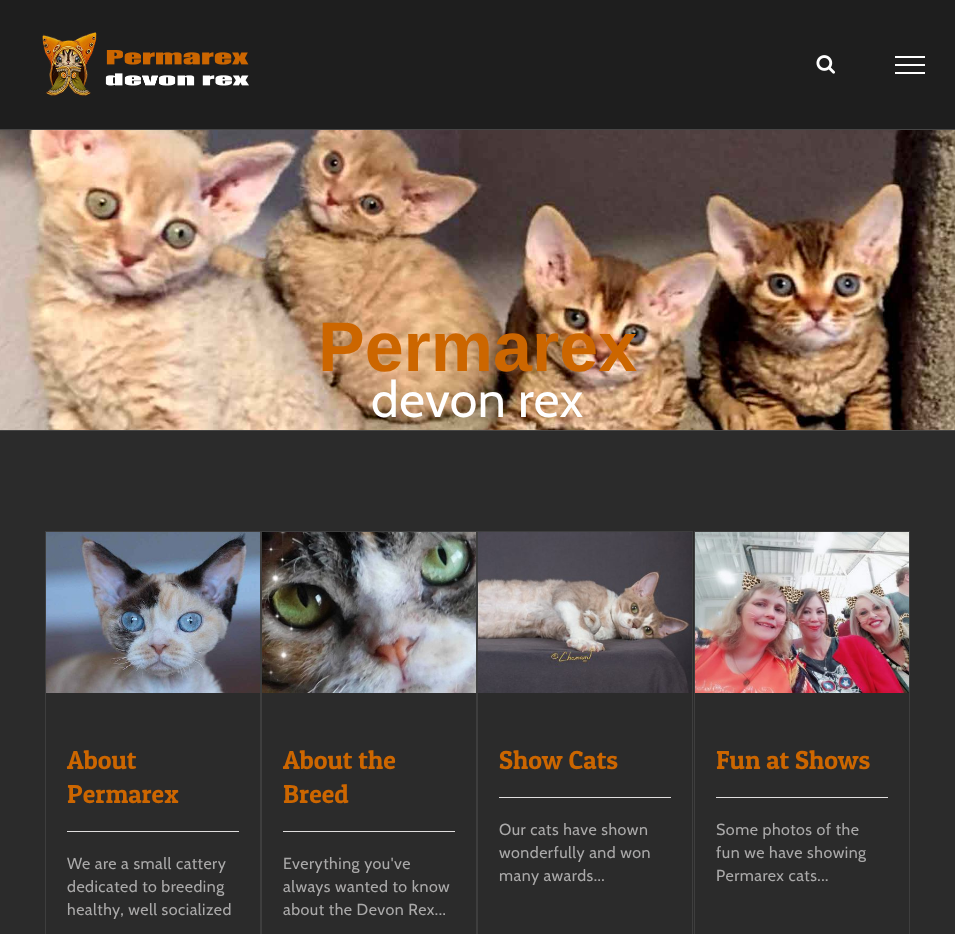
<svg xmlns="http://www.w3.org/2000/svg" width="955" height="934">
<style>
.a{font:bold 70px Liberation Sans;fill:#c60}
.b{font:50px Cabin;letter-spacing:0.5px;fill:#fff}
.c{font:26px Patua One;fill:#c60}
.d{font:16px Cabin;letter-spacing:0.5px;fill:#aaa9a9}
</style>
<rect width="100%" height="100%" fill="#2b2b2b"/>
<path fill="#1e1e1e" d="M0 0h955v129H0z"/>
<image href="1.png" x="42" y="32" width="207" height="64"/>
<image href="2.png" x="816" y="55" width="19" height="19"/>
<path fill="#fff" d="M895 56h30v2H895z"/>
<path fill="#fff" d="M895 64h30v2H895z"/>
<path fill="#fff" d="M895 72h30v2H895z"/>
<image href="3.png" x="0" y="130" width="955" height="300"/>
<path fill="#464646" d="M0 129h955v1H0z"/>
<path fill="#464646" d="M0 430h955v1H0z"/>
<path fill="#3e3e3e" d="M45 531h648v1H45z"/>
<path fill="#3e3e3e" d="M260 531h2v403H260z"/>
<path fill="#3e3e3e" d="M45 531h1v403H45z"/>
<image href="4.png" x="46" y="532" width="214" height="161"/>
<path fill="#e0dede" d="M67 831h172v1H67z"/>
<path fill="#3e3e3e" d="M476 531h2v403H476z"/>
<image href="5.png" x="262" y="532" width="214" height="161"/>
<path fill="#e0dede" d="M283 831h172v1H283z"/>
<path fill="#3e3e3e" d="M692 531h1v403H692z"/>
<image href="6.png" x="478" y="532" width="214" height="161"/>
<path fill="#e0dede" d="M499 797h172v1H499z"/>
<path fill="#3e3e3e" d="M694 531h216v1H694z"/>
<path fill="#3e3e3e" d="M909 531h1v403H909z"/>
<path fill="#3e3e3e" d="M694 531h1v403H694z"/>
<image href="7.png" x="695" y="532" width="214" height="161"/>
<path fill="#e0dede" d="M716 797h172v1H716z"/>
<text class="a" x="318" y="371">Permarex</text>
<text class="b" x="371" y="417">devon rex</text>
<text class="c" x="67" y="769">About</text>
<text class="c" x="67" y="803">Permarex</text>
<text class="d" x="67" y="869">We are a small cattery</text>
<text class="d" x="67" y="892">dedicated to breeding</text>
<text class="d" x="67" y="915">healthy, well socialized</text>
<text class="c" x="283" y="769">About the</text>
<text class="c" x="283" y="803">Breed</text>
<text class="d" x="283" y="869">Everything you've</text>
<text class="d" x="283" y="892">always wanted to know</text>
<text class="d" x="283" y="915">about the Devon Rex...</text>
<text class="c" x="499" y="769">Show Cats</text>
<text class="d" x="499" y="835">Our cats have shown</text>
<text class="d" x="499" y="858">wonderfully and won</text>
<text class="d" x="499" y="881">many awards...</text>
<text class="c" x="716" y="769">Fun at Shows</text>
<text class="d" x="716" y="835">Some photos of the</text>
<text class="d" x="716" y="858">fun we have showing</text>
<text class="d" x="716" y="881">Permarex cats...</text>
</svg>
